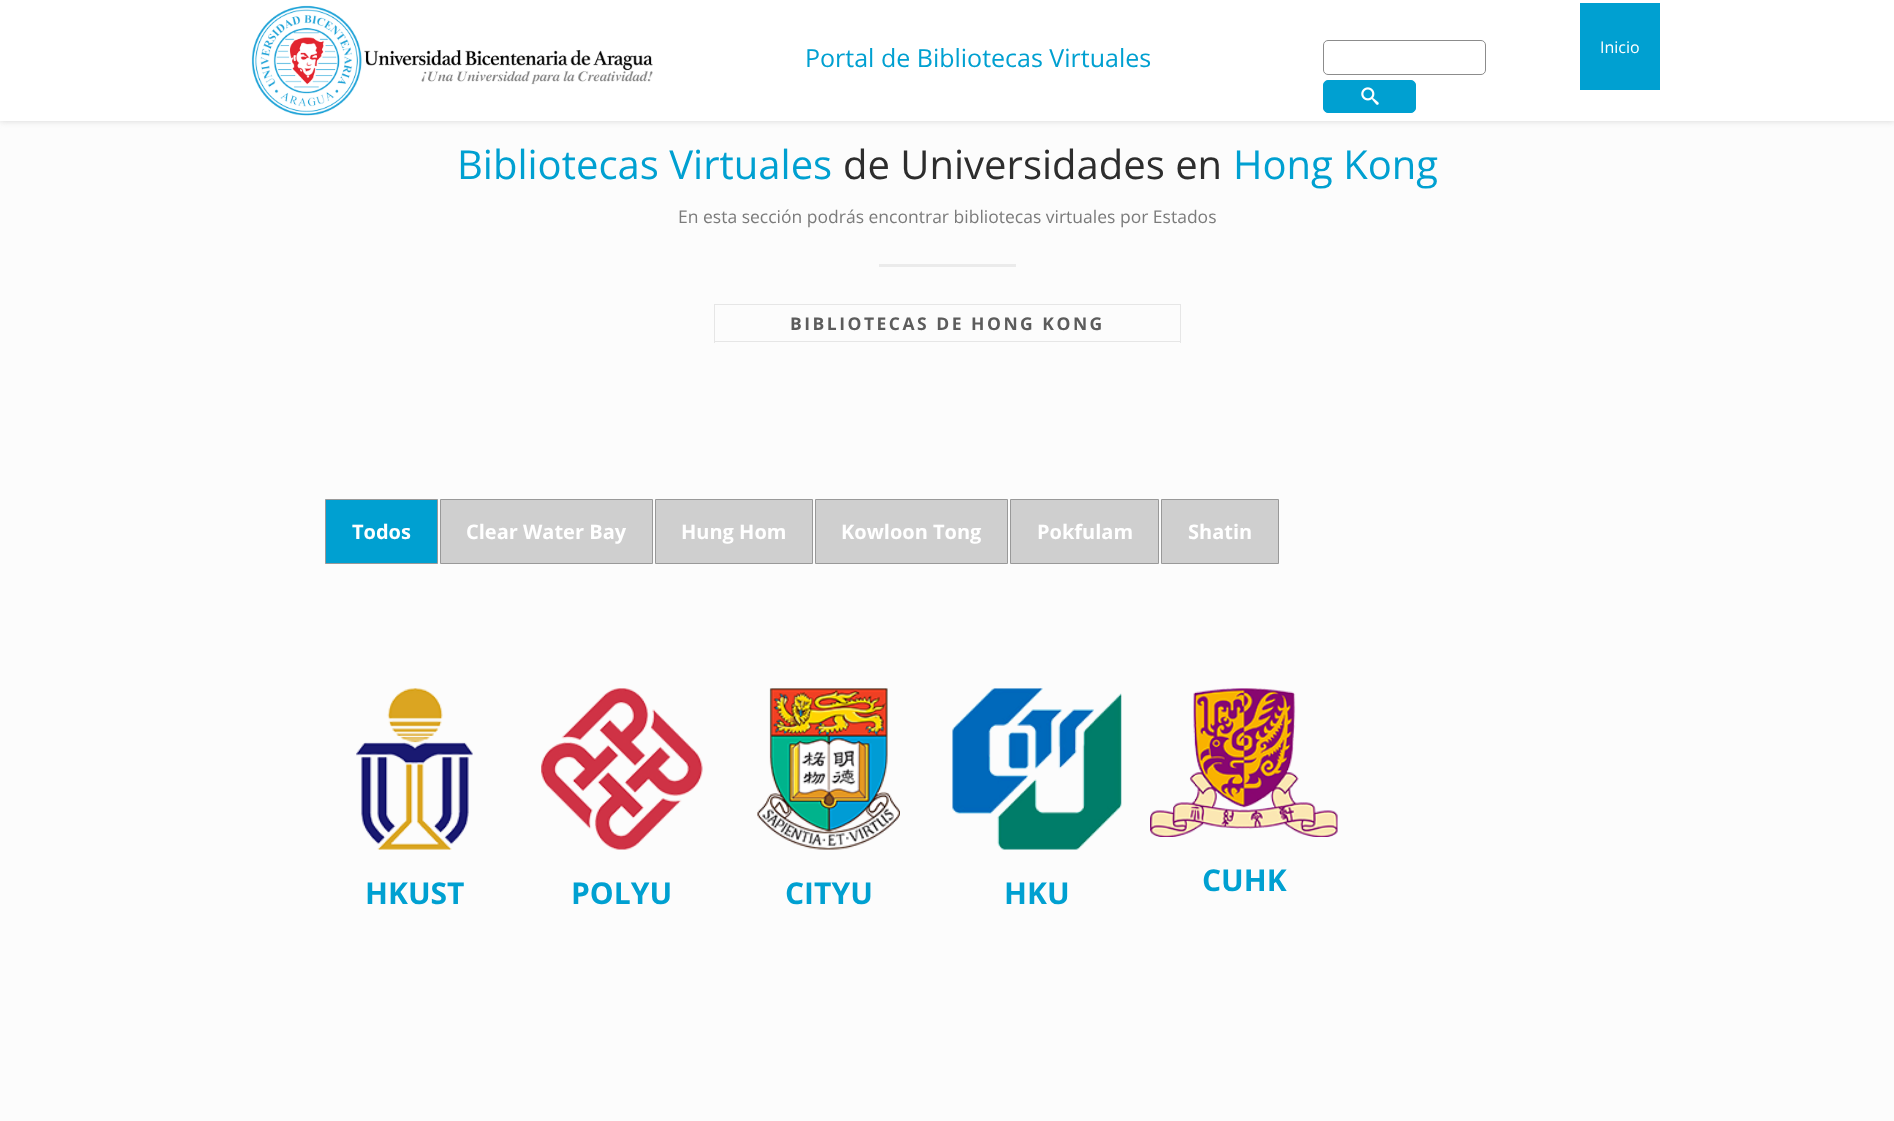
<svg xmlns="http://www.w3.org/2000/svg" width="1894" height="1121">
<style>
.a{font:25px Open Sans;fill:#00a0d1}
.b{font:16px Open Sans;fill:#fff}
.c{font:40px Open Sans;fill:#00a0d1}
.d{font:40px Open Sans;fill:#2d2d2d}
.e{font:17.5px Open Sans;fill:#7b7b7b}
.f{font:bold 17.5px Open Sans;letter-spacing:2.5px;fill:#5c5c5c}
.g{font:bold 20px Open Sans;fill:#fff}
.h{font:bold 30px Open Sans;fill:#00a0d1}
</style>
<rect width="100%" height="100%" fill="#fcfcfc"/>
<path fill="#d6d6d6" filter="blur(3px)" d="M0 0h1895v121H0z"/>
<path fill="#fff" d="M0 0h1894v121H0z"/>
<image href="1.png" x="251" y="5" width="402" height="111"/>
<rect fill="none" stroke="#8c8c8c" x="1323.5" y="40.5" width="162" height="34" rx="4.5"/>
<rect fill="#00a0d1" stroke="#00a0d1" x="1323.5" y="80.5" width="92" height="32" rx="4.5"/>
<image href="2.png" x="1361" y="87" width="18" height="18"/>
<path fill="#00a0d1" d="M1580 3h80v87H1580z"/>
<path fill="#ebebeb" d="M879 264h137v3H879z"/>
<path fill="#e6e6e6" d="M714 304h467v1H714z"/>
<path fill="#e6e6e6" d="M714 341h257v1H714z"/>
<path fill="#e6e6e6" d="M714 304h1v39H714z"/>
<path fill="#e6e6e6" d="M1180 304h1v39H1180z"/>
<path fill="#e6e6e6" d="M971 341h210v1H971z"/>
<path fill="#00a0d1" stroke="#999" d="M325.5 499.5h112v64H325.5z"/>
<path fill="#cfcfcf" stroke="#999" d="M440.5 499.5h212v64H440.5z"/>
<path fill="#cfcfcf" stroke="#999" d="M655.5 499.5h157v64H655.5z"/>
<path fill="#cfcfcf" stroke="#999" d="M815.5 499.5h192v64H815.5z"/>
<path fill="#cfcfcf" stroke="#999" d="M1010.5 499.5h148v64H1010.5z"/>
<path fill="#cfcfcf" stroke="#999" d="M1161.5 499.5h117v64H1161.5z"/>
<image href="3.png" x="356" y="688" width="117" height="162"/>
<image href="4.png" x="541" y="688" width="162" height="162"/>
<image href="5.png" x="757" y="688" width="143" height="162"/>
<image href="6.png" x="952" y="688" width="170" height="162"/>
<image href="7.png" x="1150" y="688" width="188" height="149"/>
<text class="a" x="805" y="67">Portal de Bibliotecas Virtuales</text>
<text class="b" x="1600" y="53">Inicio</text>
<text class="c" x="457" y="179">Bibliotecas Virtuales</text>
<text class="d" x="843" y="179">de Universidades en</text>
<text class="c" x="1233" y="179">Hong Kong</text>
<text class="e" x="678" y="223">En esta sección podrás encontrar bibliotecas virtuales por Estados</text>
<text class="f" x="790" y="330">BIBLIOTECAS DE HONG KONG</text>
<text class="g" x="352" y="539">Todos</text>
<text class="g" x="466" y="539">Clear Water Bay</text>
<text class="g" x="681" y="539">Hung Hom</text>
<text class="g" x="841" y="539">Kowloon Tong</text>
<text class="g" x="1037" y="539">Pokfulam</text>
<text class="g" x="1188" y="539">Shatin</text>
<text class="h" x="365" y="904">HKUST</text>
<text class="h" x="571" y="904">POLYU</text>
<text class="h" x="785" y="904">CITYU</text>
<text class="h" x="1004" y="904">HKU</text>
<text class="h" x="1202" y="891">CUHK</text>
</svg>
